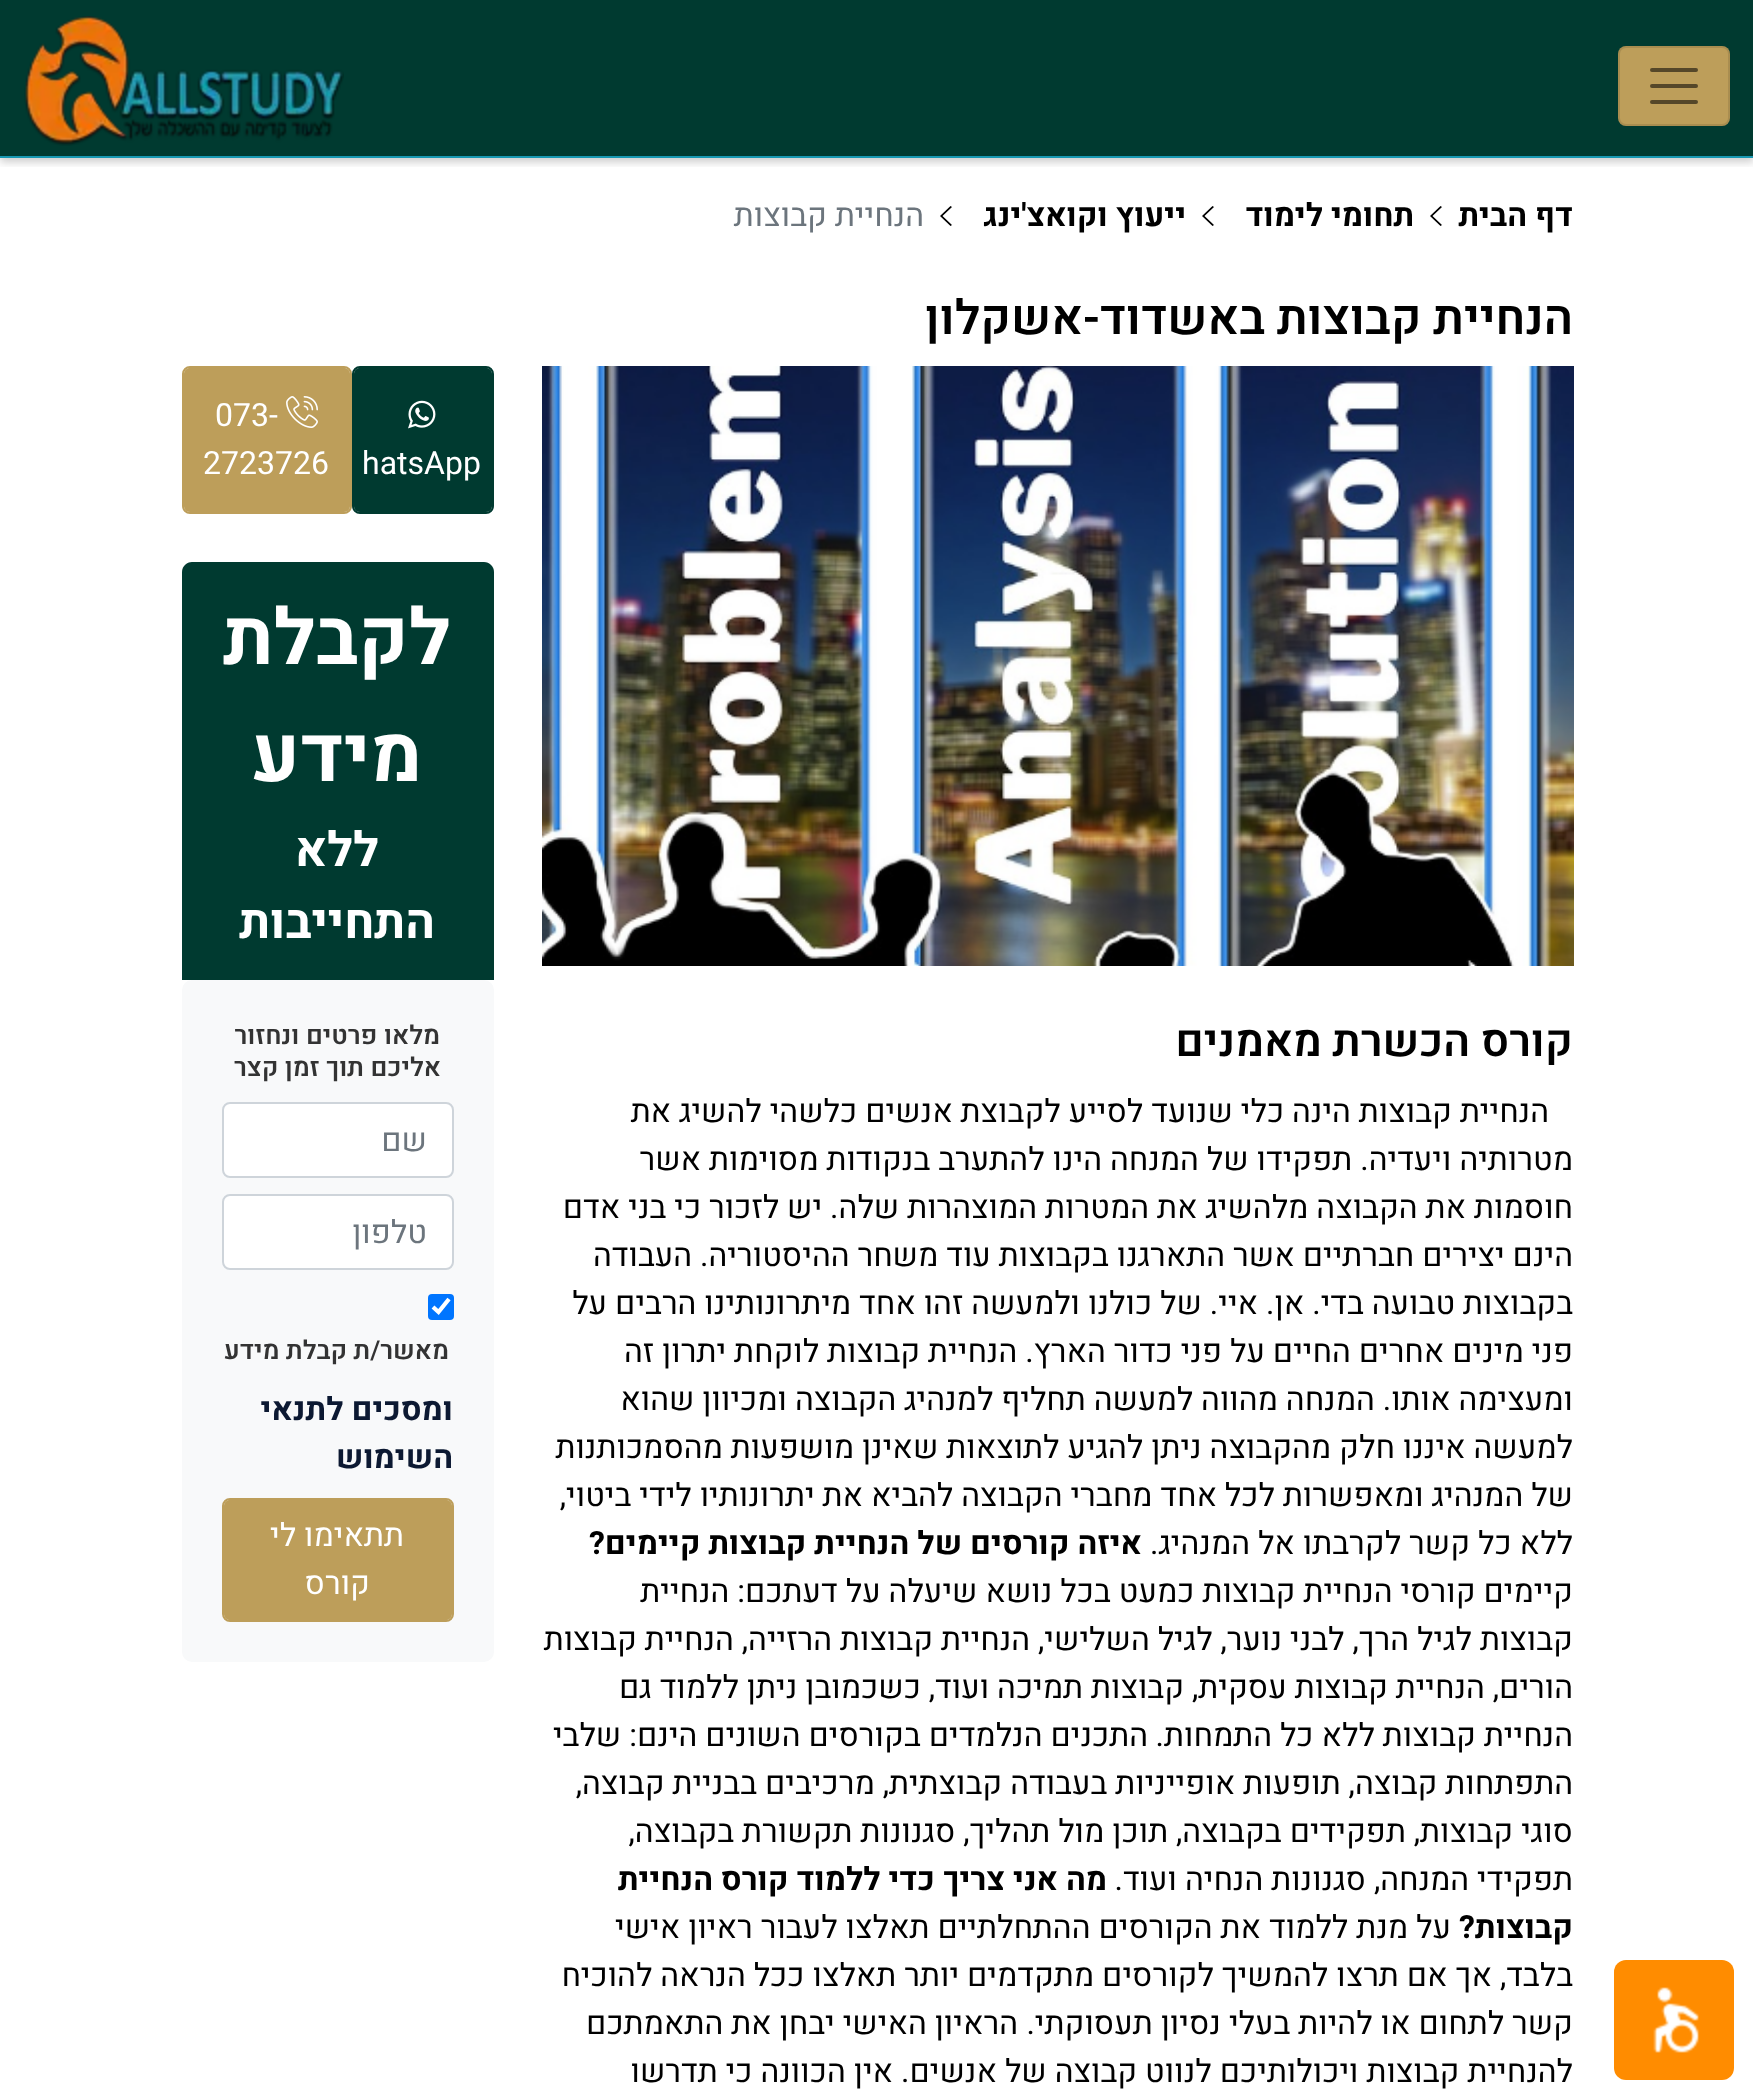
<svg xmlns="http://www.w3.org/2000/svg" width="1753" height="2100">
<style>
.a{font:bold 32px Heebo;direction:rtl;fill:#000}
.b{font:32px Heebo;direction:rtl;fill:#6c757d}
.c{font:600 48px Heebo;direction:rtl;fill:#000}
.d{font:600 44px Heebo;direction:rtl;fill:#000}
.e{font:32px Heebo;direction:rtl;fill:#000}
.f{font:bold 32px Heebo;fill:#000}
.g{font:32px Heebo;fill:#fff}
.h{font:bold 78px Heebo;direction:rtl;fill:#fff}
.i{font:bold 48px Heebo;direction:rtl;fill:#fff}
.j{font:600 26px Heebo;direction:rtl;fill:#333}
.k{font:bold 32px Heebo;direction:rtl;fill:#0c1932}
.l{font:32px Heebo;direction:rtl;fill:#fff}
</style>
<defs>
<clipPath id="clip1"><path d="M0 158h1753v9H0z"/></clipPath>
</defs>
<rect width="100%" height="100%" fill="#fff"/>
<path fill="#003a30" d="M0 0h1753v156H0z"/>
<g clip-path="url(#clip1)">
<path fill="#00000033" filter="blur(4px)" d="M0 4h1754v158H0z"/>
</g>
<path fill="#1798b2" d="M0 156h1753v2H0z"/>
<rect fill="#bd9e5a" x="1618" y="46" width="112" height="80" rx="8"/>
<rect fill="none" stroke="#0000001a" stroke-width="2" x="1619" y="47" width="110" height="78" rx="7"/>
<path fill="none" stroke="#554729" stroke-width="4" stroke-linecap="round" d="M1652 70h44m-44 16h44m-44 16h44"/>
<image href="1.png" x="24" y="16" width="320" height="130"/>
<rect fill="#ff8c00" x="1614" y="1960" width="120" height="120" rx="12"/>
<image href="2.png" x="1653" y="1987" width="46" height="66"/>
<path fill="#000" d="M1442 207l-9.5 9l9.5 9l-1.5 1l-10.5-10l10.5-10z"/>
<path fill="#000" d="M1214 207l-9.5 9l9.5 9l-1.5 1l-10.5-10l10.5-10z"/>
<path fill="#000" d="M952 207l-9.5 9l9.5 9l-1.5 1l-10.5-10l10.5-10z"/>
<image href="3.png" x="542" y="366" width="1032" height="600"/>
<rect fill="none" stroke="#003a30" stroke-width="2" x="353" y="367" width="140" height="146" rx="7"/>
<path fill="#003a30" d="M360 368h64v144h-64c-3.5 0-6-2.5-6-6v-132c0-3.5 2.5-6 6-6z"/>
<path fill="#003a30" d="M422 368h64c3.5 0 6 2.5 6 6v132c0 3.5-2.5 6-6 6h-64z"/>
<image href="4.png" x="408" y="400" width="28" height="29"/>
<rect fill="none" stroke="#bd9e5a" stroke-width="2" x="183" y="367" width="168" height="146" rx="7"/>
<path fill="#bd9e5a" d="M190 368h78v144h-78c-3.5 0-6-2.5-6-6v-132c0-3.5 2.5-6 6-6z"/>
<path fill="#bd9e5a" d="M264 368h80c3.5 0 6 2.5 6 6v132c0 3.5-2.5 6-6 6h-80z"/>
<image href="5.png" x="286" y="396" width="32" height="32"/>
<path fill="#003a30" d="M192 562h292c5.5 0 10 4.5 10 10v408h-312v-408c0-5.5 4.5-10 10-10z"/>
<rect fill="#f8f9fa" x="182" y="980" width="312" height="682" rx="10"/>
<rect fill="#fff" stroke="#ced4da" stroke-width="2" x="223" y="1103" width="230" height="74" rx="7"/>
<rect fill="#fff" stroke="#ced4da" stroke-width="2" x="223" y="1195" width="230" height="74" rx="7"/>
<rect fill="#0075ff" x="428" y="1294" width="26" height="26" rx="4"/>
<path fill="none" stroke="#fff" stroke-width="4.2" d="M433 1307l5.5 5l10.5-13"/>
<rect fill="none" stroke="#bd9e5a" stroke-width="2" x="223" y="1499" width="230" height="122" rx="7"/>
<path fill="#bd9e5a" d="M230 1500h110v120h-110c-3.5 0-6-2.5-6-6v-108c0-3.5 2.5-6 6-6z"/>
<path fill="#bd9e5a" d="M334 1500h112c3.5 0 6 2.5 6 6v108c0 3.5-2.5 6-6 6h-112z"/>
<text class="a" x="1573" y="226">דף הבית</text>
<text class="a" x="1414" y="226">תחומי לימוד</text>
<text class="a" x="1186" y="226">ייעוץ וקואצ'ינג</text>
<text class="b" x="924" y="226">הנחיית קבוצות</text>
<text class="c" x="1573" y="334">הנחיית קבוצות באשדוד-אשקלון</text>
<text class="d" x="1573" y="1056">קורס הכשרת מאמנים</text>
<text class="e" x="1549" y="1122">הנחיית קבוצות הינה כלי שנועד לסייע לקבוצת אנשים כלשהי להשיג את</text>
<text class="e" x="1573" y="1170">מטרותיה ויעדיה. תפקידו של המנחה הינו להתערב בנקודות מסוימות אשר</text>
<text class="e" x="1573" y="1218">חוסמות את הקבוצה מלהשיג את המטרות המוצהרות שלה. יש לזכור כי בני אדם</text>
<text class="e" x="1573" y="1266">הינם יצירים חברתיים אשר התארגנו בקבוצות עוד משחר ההיסטוריה. העבודה</text>
<text class="e" x="1573" y="1314">בקבוצות טבועה בדי. אן. איי. של כולנו ולמעשה זהו אחד מיתרונותינו הרבים על</text>
<text class="e" x="1573" y="1362">פני מינים אחרים החיים על פני כדור הארץ. הנחיית קבוצות לוקחת יתרון זה</text>
<text class="e" x="1573" y="1410">ומעצימה אותו. המנחה מהווה למעשה תחליף למנהיג הקבוצה ומכיוון שהוא</text>
<text class="e" x="1573" y="1458">למעשה איננו חלק מהקבוצה ניתן להגיע לתוצאות שאינן מושפעות מהסמכותנות</text>
<text class="e" x="1573" y="1506">של המנהיג ומאפשרות לכל אחד מחברי הקבוצה להביא את יתרונותיו לידי ביטוי,</text>
<text class="e" x="1573" y="1554">ללא כל קשר לקרבתו אל המנהיג.</text>
<text class="a" x="1142" y="1554">איזה קורסים של הנחיית קבוצות קיימים</text>
<text class="f" x="589" y="1554">?</text>
<text class="e" x="1573" y="1602">קיימים קורסי הנחיית קבוצות כמעט בכל נושא שיעלה על דעתכם: הנחיית</text>
<text class="e" x="1573" y="1650">קבוצות לגיל הרך, לבני נוער, לגיל השלישי, הנחיית קבוצות הרזייה, הנחיית קבוצות</text>
<text class="e" x="1573" y="1698">הורים, הנחיית קבוצות עסקית, קבוצות תמיכה ועוד, כשכמובן ניתן ללמוד גם</text>
<text class="e" x="1573" y="1746">הנחיית קבוצות ללא כל התמחות.</text>
<text class="e" x="1148" y="1746">התכנים הנלמדים בקורסים השונים הינם: שלבי</text>
<text class="e" x="1573" y="1794">התפתחות קבוצה, תופעות אופייניות בעבודה קבוצתית, מרכיבים בבניית קבוצה,</text>
<text class="e" x="1573" y="1842">סוגי קבוצות, תפקידים בקבוצה, תוכן מול תהליך, סגנונות תקשורת בקבוצה,</text>
<text class="e" x="1573" y="1890">תפקידי המנחה, סגנונות הנחיה ועוד.</text>
<text class="a" x="1107" y="1890">מה אני צריך כדי ללמוד קורס הנחיית</text>
<text class="a" x="1573" y="1938">קבוצות</text>
<text class="f" x="1459" y="1938">?</text>
<text class="e" x="1451" y="1938">על מנת ללמוד את הקורסים ההתחלתיים תאלצו לעבור ראיון אישי</text>
<text class="e" x="1573" y="1986">בלבד, אך אם תרצו להמשיך לקורסים מתקדמים יותר תאלצו ככל הנראה להוכיח</text>
<text class="e" x="1573" y="2034">קשר לתחום או להיות בעלי נסיון תעסוקתי.</text>
<text class="e" x="1018" y="2034">הראיון האישי יבחן את התאמתכם</text>
<text class="e" x="1573" y="2082">להנחיית קבוצות ויכולותיכם לנווט קבוצה של אנשים. אין הכוונה כי תדרשו</text>
<text class="g" x="362" y="474">hatsApp</text>
<text class="g" x="215" y="426">073-</text>
<text class="g" x="203" y="474">2723726</text>
<text class="h" x="451" y="664">לקבלת</text>
<text class="h" x="422" y="781">מידע</text>
<text class="i" x="379" y="866">ללא</text>
<text class="i" x="435" y="938">התחייבות</text>
<text class="j" x="440" y="1044">מלאו פרטים ונחזור</text>
<text class="j" x="441" y="1076">אליכם תוך זמן קצר</text>
<text class="b" x="427" y="1151">שם</text>
<text class="b" x="427" y="1243">טלפון</text>
<text class="j" x="449" y="1359">מאשר/ת קבלת מידע</text>
<text class="k" x="453" y="1420">ומסכים לתנאי</text>
<text class="k" x="453" y="1468">השימוש</text>
<text class="l" x="404" y="1546">תתאימו לי</text>
<text class="l" x="370" y="1594">קורס</text>
</svg>
